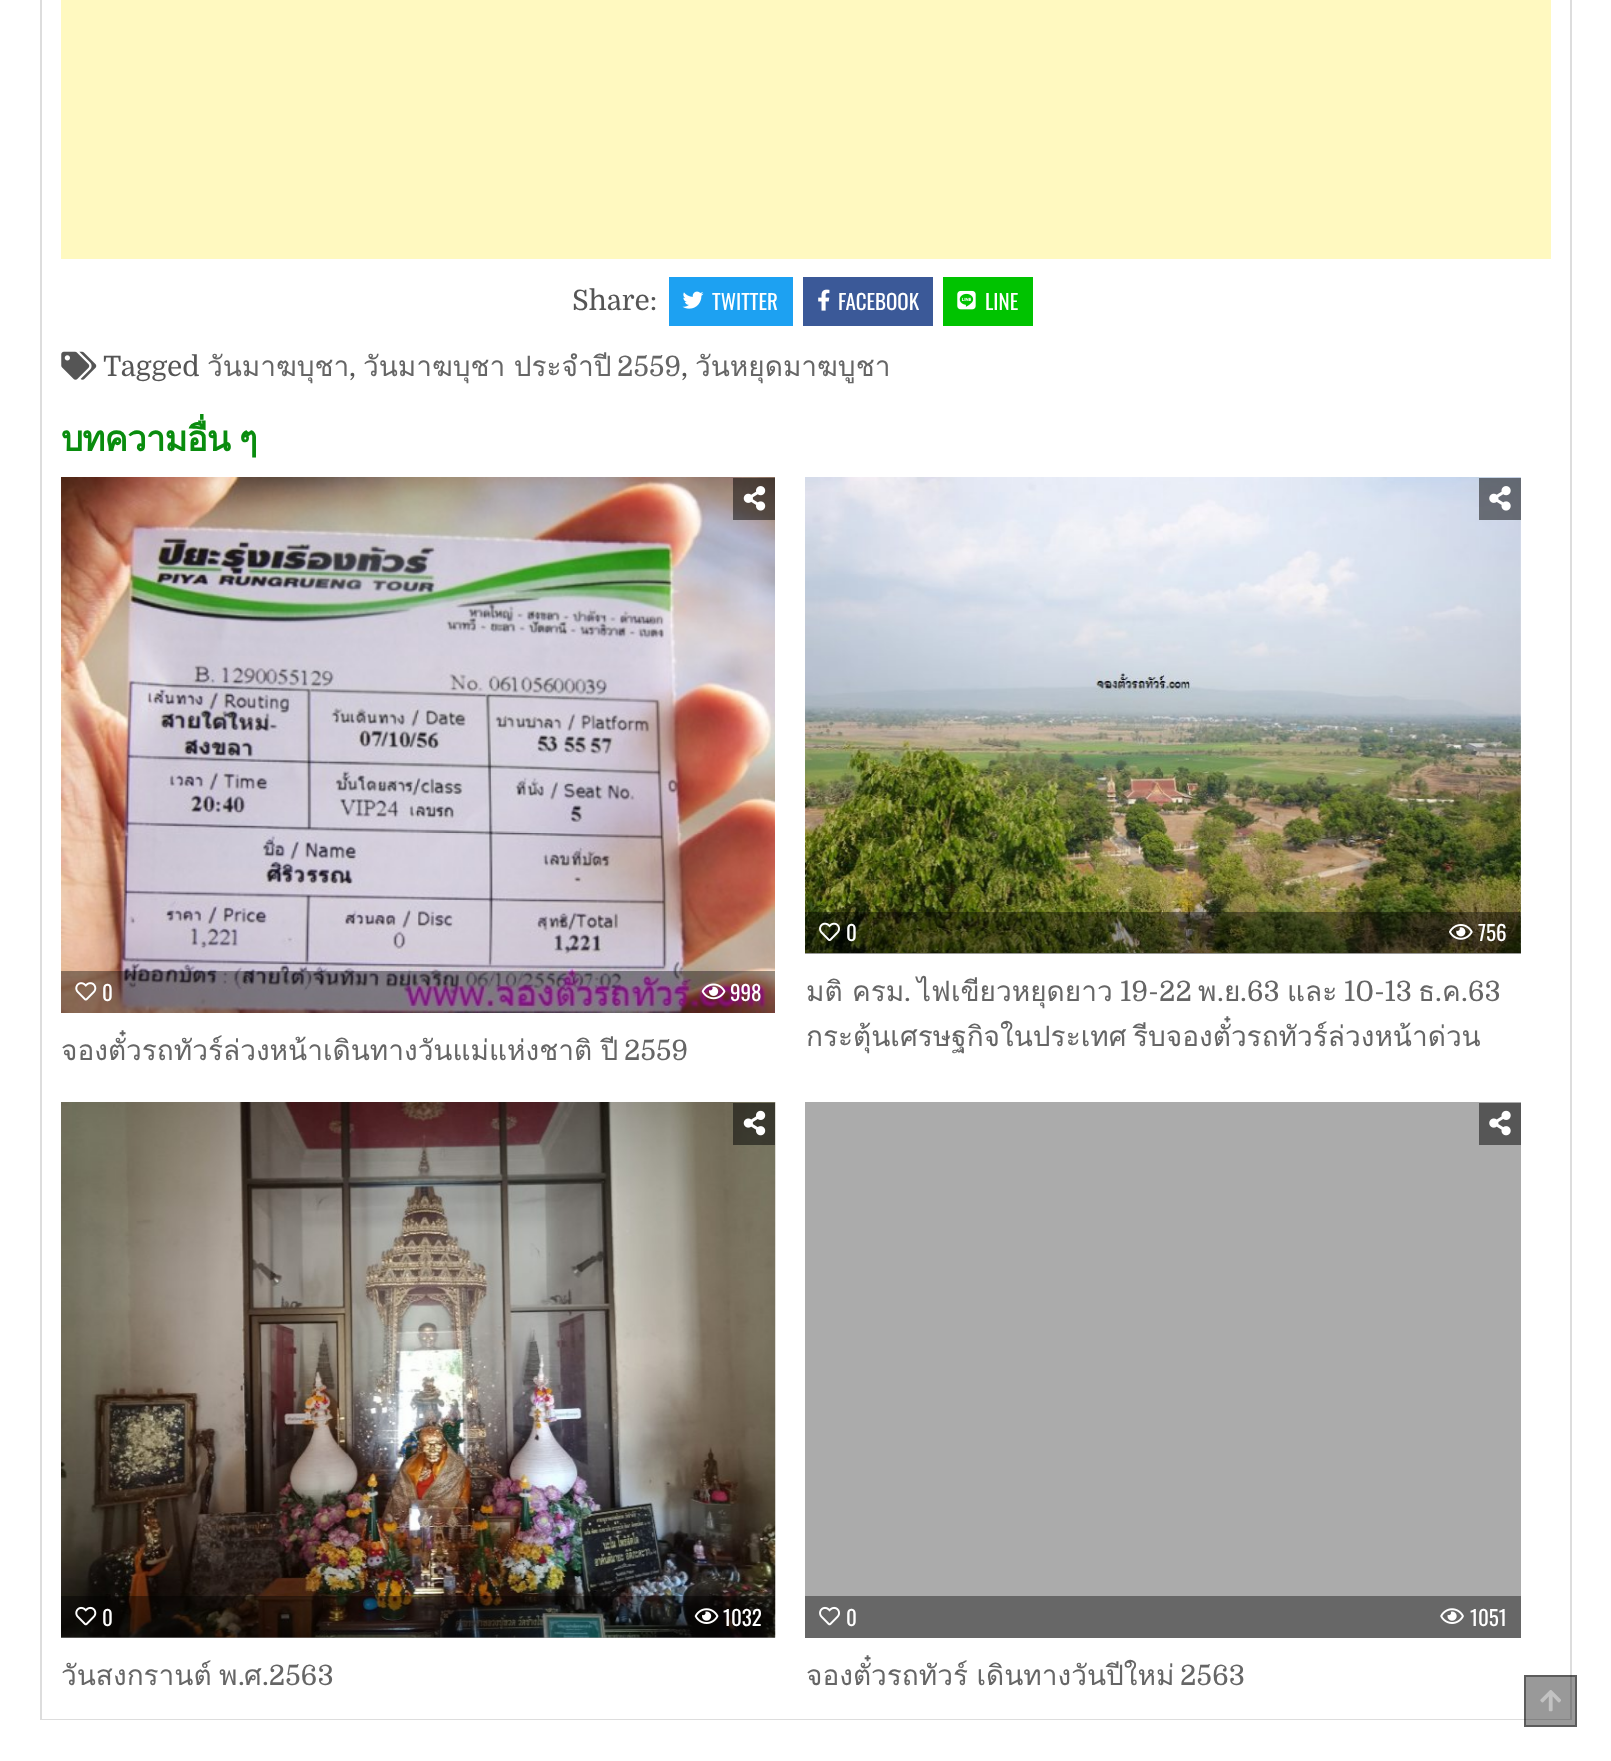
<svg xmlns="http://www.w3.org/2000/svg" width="1611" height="1761">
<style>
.a{font:28px Domine;fill:#555}
.b{font:21px Oswald;fill:#fff}
.c{font:28px Loma;fill:#666}
.d{font:28px Domine;fill:#666}
.e{font:bold 35px Loma;letter-spacing:-0.9px;fill:#098c0e}
</style>
<defs>
<clipPath id="clip1"><path d="M61 1103h714v596H61z"/></clipPath>
</defs>
<rect width="100%" height="100%" fill="#fff"/>
<path fill="none" stroke="#ddd" stroke-width="2" d="M41 -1h1530v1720H41z"/>
<path fill="none" stroke="#fff" stroke-width="2" d="M43 -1h1526v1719H43z"/>
<path fill="#fff9c0" d="M61 0h1490v259H61z"/>
<path fill="#1da1f2" d="M669 277h124v49H669z"/>
<image href="1.png" x="682" y="291" width="22" height="18"/>
<path fill="#3b5998" d="M803 277h130v49H803z"/>
<image href="2.png" x="818" y="289" width="12" height="22"/>
<path fill="#00c300" d="M943 277h90v49H943z"/>
<image href="3.png" x="957" y="290" width="19" height="20"/>
<image href="4.png" x="61" y="351" width="36" height="29"/>
<image href="5.png" x="61" y="477" width="714" height="536"/>
<path fill="#00000080" d="M733 478h42v42H733z"/>
<image href="6.png" x="743" y="486" width="23" height="25"/>
<path fill="#00000066" d="M61 971h714v42H61z"/>
<image href="7.png" x="75" y="982" width="22" height="19"/>
<image href="8.png" x="701" y="983" width="25" height="17"/>
<image href="9.png" x="805" y="477" width="716" height="476"/>
<path fill="#00000080" d="M1479 478h42v42H1479z"/>
<image href="10.png" x="1489" y="486" width="22" height="25"/>
<path fill="#00000066" d="M805 912h716v42H805z"/>
<image href="11.png" x="819" y="922" width="21" height="19"/>
<image href="12.png" x="1449" y="924" width="24" height="16"/>
<image href="13.png" x="61" y="1102" width="715" height="536"/>
<path fill="#00000080" d="M733 1103h42v42H733z"/>
<image href="14.png" x="743" y="1110" width="23" height="26"/>
<path fill="#00000066" d="M61 1596h714v42H61z"/>
<image href="15.png" x="75" y="1606" width="22" height="20"/>
<image href="16.png" x="694" y="1608" width="25" height="16"/>
<path fill="#ababab" d="M805 1102h716v494H805z"/>
<path fill="#565656" d="M1479 1103h42v42H1479z"/>
<image href="17.png" x="1489" y="1110" width="22" height="26"/>
<path fill="#676767" d="M805 1596h716v42H805z"/>
<image href="18.png" x="819" y="1606" width="21" height="20"/>
<image href="19.png" x="1440" y="1608" width="24" height="16"/>
<path fill="#00000066" d="M1524 1675h53v52H1524z"/>
<path fill="none" stroke="#00000066" stroke-width="2" d="M1525 1676h51v50H1525z"/>
<image href="20.png" x="1540" y="1690" width="21" height="22"/>
<text class="a" x="572" y="310">Share:</text>
<text class="b" x="712" y="310">TWITTER</text>
<text class="b" x="838" y="310">FACEBOOK</text>
<text class="b" x="985" y="310">LINE</text>
<text class="a" x="103" y="376">Tagged</text>
<text class="c" x="207" y="376">วันมาฆบุชา</text>
<text class="d" x="617" y="376">2559</text>
<text class="a" x="349" y="376">,</text>
<text class="c" x="363" y="376" word-spacing="-1">วันมาฆบุชา ประจำปี</text>
<text class="a" x="681" y="376">,</text>
<text class="c" x="695" y="376">วันหยุดมาฆบูชา</text>
<text class="e" x="61" y="451" word-spacing="-2">บทความอื่น ๆ</text>
<text class="b" x="102" y="1001">0</text>
<text class="b" x="730" y="1001">998</text>
<text class="c" x="61" y="1060" word-spacing="-1">จองตั๋วรถทัวร์ล่วงหน้าเดินทางวันแม่แห่งชาติ ปี</text>
<text class="d" x="624" y="1060">2559</text>
<text class="b" x="846" y="941">0</text>
<text class="b" x="1478" y="941">756</text>
<text class="c" x="806" y="1001">มติ ครม</text>
<text class="d" x="904" y="1001">.</text>
<text class="c" x="917" y="1001">ไฟเขียวหยุดยาว</text>
<text class="d" x="1120" y="1001">19-22</text>
<text class="c" x="1198" y="1001">พ</text>
<text class="d" x="1217" y="1001">.</text>
<text class="c" x="1224" y="1001">ย</text>
<text class="d" x="1240" y="1001">.63</text>
<text class="c" x="1287" y="1001">และ</text>
<text class="d" x="1344" y="1001">10-13</text>
<text class="c" x="1418" y="1001">ธ</text>
<text class="d" x="1435" y="1001">.</text>
<text class="c" x="1442" y="1001">ค</text>
<text class="d" x="1461" y="1001">.63</text>
<text class="c" x="806" y="1046">กระตุ้นเศรษฐกิจในประเทศ</text>
<text class="c" x="1133" y="1046">รีบจองตั๋วรถทัวร์ล่วงหน้าด่วน</text>
<text class="b" x="102" y="1626">0</text>
<text class="b" x="723" y="1626">1032</text>
<g clip-path="url(#clip1)">
<text class="c" x="61" y="1685" word-spacing="-2">วันสงกรานต์ พ</text>
</g>
<text class="d" x="238" y="1685">.</text>
<text class="c" x="244" y="1685">ศ</text>
<text class="d" x="262" y="1685">.2563</text>
<text class="b" x="846" y="1626">0</text>
<text class="b" x="1470" y="1626">1051</text>
<text class="c" x="806" y="1685" word-spacing="-1">จองตั๋วรถทัวร์ เดินทางวันปีใหม่</text>
<text class="d" x="1180" y="1685">2563</text>
</svg>
